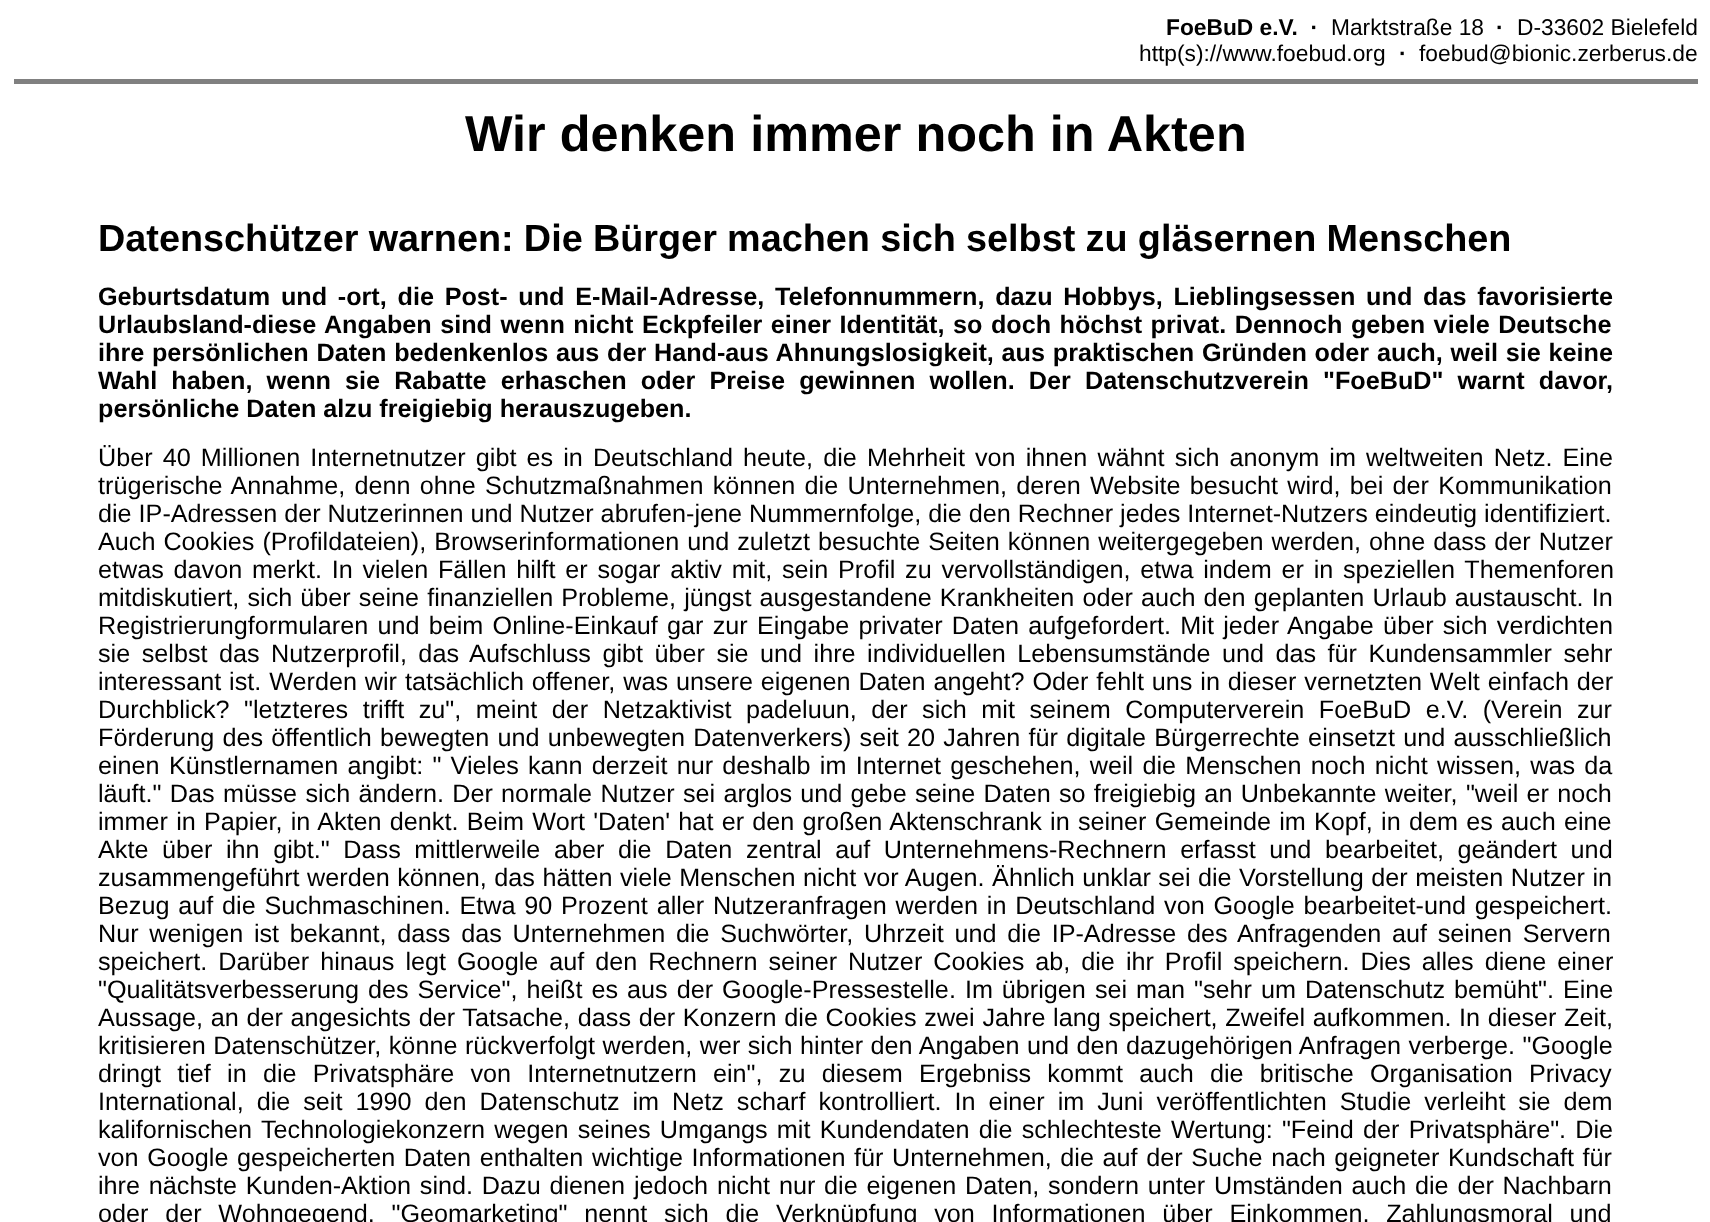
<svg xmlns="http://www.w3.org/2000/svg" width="1710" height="1222">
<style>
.a{font:bold 22.75px Liberation Sans;fill:#000}
.b{font:22.75px Liberation Sans;fill:#000}
.c{font:bold 50.4px Liberation Sans;fill:#000}
.d{font:bold 37.8px Liberation Sans;fill:#000}
.e{font:bold 25.2px Liberation Sans;fill:#000}
.f{font:25.2px Liberation Sans;fill:#000}
</style>
<rect width="100%" height="100%" fill="#fff"/>
<path fill="#808080" d="M14 79h1684v5H14z"/>
<text class="a" xml:space="preserve" x="1166" y="35">FoeBuD e.V.  ·</text>
<text class="b" x="1331" y="35">Marktstraße 18</text>
<text class="a" x="1496" y="35">·</text>
<text class="b" x="1517" y="35">D-33602 Bielefeld</text>
<text class="b" x="1139" y="61">http(s)://www.foebud.org</text>
<text class="a" x="1399" y="61">·</text>
<text class="b" x="1419" y="61">foebud@bionic.zerberus.de</text>
<text class="c" x="465" y="151">Wir denken immer noch in Akten</text>
<text class="d" x="98" y="251" word-spacing="-0.25">Datenschützer warnen: Die Bürger machen sich selbst zu gläsernen Menschen</text>
<text class="e" x="98" y="305" word-spacing="3.75">Geburtsdatum und -ort, die Post- und E-Mail-Adresse, Telefonnummern, dazu Hobbys, Lieblingsessen und das favorisierte</text>
<text class="e" x="98" y="333" word-spacing="1.5">Urlaubsland-diese Angaben sind wenn nicht Eckpfeiler einer Identität, so doch höchst privat. Dennoch geben viele Deutsche</text>
<text class="e" x="98" y="361" word-spacing="0.75">ihre persönlichen Daten bedenkenlos aus der Hand-aus Ahnungslosigkeit, aus praktischen Gründen oder auch, weil sie keine</text>
<text class="e" x="98" y="389" word-spacing="7.1">Wahl haben, wenn sie Rabatte erhaschen oder Preise gewinnen wollen. Der Datenschutzverein "FoeBuD" warnt davor,</text>
<text class="e" x="98" y="417">persönliche Daten alzu freigiebig herauszugeben.</text>
<text class="f" x="98" y="466" word-spacing="3.1">Über 40 Millionen Internetnutzer gibt es in Deutschland heute, die Mehrheit von ihnen wähnt sich anonym im weltweiten Netz. Eine</text>
<text class="f" x="98" y="494" word-spacing="2.25">trügerische Annahme, denn ohne Schutzmaßnahmen können die Unternehmen, deren Website besucht wird, bei der Kommunikation</text>
<text class="f" x="98" y="522">die IP-Adressen der Nutzerinnen und Nutzer abrufen-jene Nummernfolge, die den Rechner jedes Internet-Nutzers eindeutig identifiziert.</text>
<text class="f" x="98" y="550" word-spacing="1">Auch Cookies (Profildateien), Browserinformationen und zuletzt besuchte Seiten können weitergegeben werden, ohne dass der Nutzer</text>
<text class="f" x="98" y="578" word-spacing="2.75">etwas davon merkt. In vielen Fällen hilft er sogar aktiv mit, sein Profil zu vervollständigen, etwa indem er in speziellen Themenforen</text>
<text class="f" x="98" y="606" word-spacing="1.1">mitdiskutiert, sich über seine finanziellen Probleme, jüngst ausgestandene Krankheiten oder auch den geplanten Urlaub austauscht. In</text>
<text class="f" x="98" y="634" word-spacing="2.25">Registrierungformularen und beim Online-Einkauf gar zur Eingabe privater Daten aufgefordert. Mit jeder Angabe über sich verdichten</text>
<text class="f" x="98" y="662" word-spacing="4.5">sie selbst das Nutzerprofil, das Aufschluss gibt über sie und ihre individuellen Lebensumstände und das für Kundensammler sehr</text>
<text class="f" x="98" y="690" word-spacing="0.9">interessant ist. Werden wir tatsächlich offener, was unsere eigenen Daten angeht? Oder fehlt uns in dieser vernetzten Welt einfach der</text>
<text class="f" x="98" y="718" word-spacing="7.5">Durchblick? "letzteres trifft zu", meint der Netzaktivist padeluun, der sich mit seinem Computerverein FoeBuD e.V. (Verein zur</text>
<text class="f" x="98" y="746" word-spacing="1.25">Förderung des öffentlich bewegten und unbewegten Datenverkers) seit 20 Jahren für digitale Bürgerrechte einsetzt und ausschließlich</text>
<text class="f" x="98" y="774" word-spacing="2.25">einen Künstlernamen angibt: " Vieles kann derzeit nur deshalb im Internet geschehen, weil die Menschen noch nicht wissen, was da</text>
<text class="f" x="98" y="802" word-spacing="1.3">läuft." Das müsse sich ändern. Der normale Nutzer sei arglos und gebe seine Daten so freigiebig an Unbekannte weiter, "weil er noch</text>
<text class="f" x="98" y="830" word-spacing="1.25">immer in Papier, in Akten denkt. Beim Wort 'Daten' hat er den großen Aktenschrank in seiner Gemeinde im Kopf, in dem es auch eine</text>
<text class="f" x="98" y="858" word-spacing="6.6">Akte über ihn gibt." Dass mittlerweile aber die Daten zentral auf Unternehmens-Rechnern erfasst und bearbeitet, geändert und</text>
<text class="f" x="98" y="886" word-spacing="0.5">zusammengeführt werden können, das hätten viele Menschen nicht vor Augen. Ähnlich unklar sei die Vorstellung der meisten Nutzer in</text>
<text class="f" x="98" y="914" word-spacing="1.8">Bezug auf die Suchmaschinen. Etwa 90 Prozent aller Nutzeranfragen werden in Deutschland von Google bearbeitet-und gespeichert.</text>
<text class="f" x="98" y="942" word-spacing="3.75">Nur wenigen ist bekannt, dass das Unternehmen die Suchwörter, Uhrzeit und die IP-Adresse des Anfragenden auf seinen Servern</text>
<text class="f" x="98" y="970" word-spacing="4">speichert. Darüber hinaus legt Google auf den Rechnern seiner Nutzer Cookies ab, die ihr Profil speichern. Dies alles diene einer</text>
<text class="f" x="98" y="998" word-spacing="2">"Qualitätsverbesserung des Service", heißt es aus der Google-Pressestelle. Im übrigen sei man "sehr um Datenschutz bemüht". Eine</text>
<text class="f" x="98" y="1026" word-spacing="0.7">Aussage, an der angesichts der Tatsache, dass der Konzern die Cookies zwei Jahre lang speichert, Zweifel aufkommen. In dieser Zeit,</text>
<text class="f" x="98" y="1054" word-spacing="0.5">kritisieren Datenschützer, könne rückverfolgt werden, wer sich hinter den Angaben und den dazugehörigen Anfragen verberge. "Google</text>
<text class="f" x="98" y="1082" word-spacing="9.25">dringt tief in die Privatsphäre von Internetnutzern ein", zu diesem Ergebniss kommt auch die britische Organisation Privacy</text>
<text class="f" x="98" y="1110" word-spacing="6">International, die seit 1990 den Datenschutz im Netz scharf kontrolliert. In einer im Juni veröffentlichten Studie verleiht sie dem</text>
<text class="f" x="98" y="1138">kalifornischen</text>
<text class="f" x="261" y="1138" word-spacing="2.25">Technologiekonzern wegen seines Umgangs mit Kundendaten die schlechteste Wertung: "Feind der Privatsphäre". Die</text>
<text class="f" x="98" y="1166" word-spacing="1.6">von Google gespeicherten Daten enthalten wichtige Informationen für Unternehmen, die auf der Suche nach geigneter Kundschaft für</text>
<text class="f" x="98" y="1194" word-spacing="1.8">ihre nächste Kunden-Aktion sind. Dazu dienen jedoch nicht nur die eigenen Daten, sondern unter Umständen auch die der Nachbarn</text>
<text class="f" x="98" y="1222" word-spacing="9.75">oder der Wohngegend. "Geomarketing" nennt sich die Verknüpfung von Informationen über Einkommen, Zahlungsmoral und</text>
</svg>
